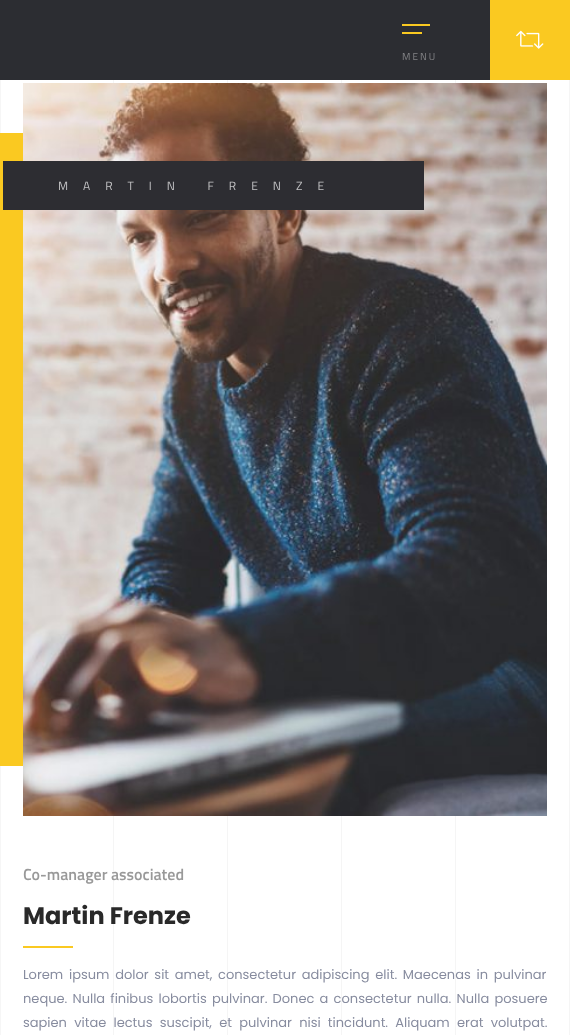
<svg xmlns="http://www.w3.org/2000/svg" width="570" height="1035">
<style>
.a{font:10px Titillium Web;letter-spacing:2px;fill:#838386}
.b{font:12px Titillium Web;letter-spacing:15px;fill:#c2c2c4}
.c{font:600 16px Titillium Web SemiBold;fill:#999}
.d{font:bold 24px Poppins;fill:#292929}
.e{font:13px Poppins;fill:#878c9f}
</style>
<rect width="100%" height="100%" fill="#fff"/>
<path fill="#2c2d32" d="M0 0h490v80H0z"/>
<path fill="#fac921" d="M490 0h80v80H490z"/>
<image href="1.png" x="516" y="30" width="28" height="19"/>
<path fill="#fac921" d="M402 24h28v2H402z"/>
<path fill="#fac921" d="M402 32h20v2H402z"/>
<path fill="#f5f5f5" d="M113 80h1v955H113z"/>
<path fill="#f6f6f6" d="M0 80h1v955H0z"/>
<path fill="#f5f5f5" d="M227 80h1v955H227z"/>
<path fill="#f5f5f5" d="M341 80h1v955H341z"/>
<path fill="#f5f5f5" d="M455 80h1v955H455z"/>
<path fill="#f5f5f5" d="M569 80h1v955H569z"/>
<path fill="#fac921" d="M0 133h23v633H0z"/>
<image href="2.png" x="23" y="83" width="524" height="733"/>
<path fill="#2d2d32" d="M3 161h421v49H3z"/>
<path fill="#fac921" d="M23 946h50v2H23z"/>
<text class="a" x="402" y="60">MENU</text>
<text class="b" x="58" y="190">MARTIN FRENZE</text>
<text class="c" x="23" y="880">Co-manager associated</text>
<text class="d" x="23" y="924">Martin Frenze</text>
<text class="e" x="23" y="979" word-spacing="2.25">Lorem ipsum dolor sit amet, consectetur adipiscing elit. Maecenas in pulvinar</text>
<text class="e" x="23" y="1003" word-spacing="1.75">neque. Nulla finibus lobortis pulvinar. Donec a consectetur nulla. Nulla posuere</text>
<text class="e" x="23" y="1027" word-spacing="3.75">sapien vitae lectus suscipit, et pulvinar nisi tincidunt. Aliquam erat volutpat.</text>
</svg>
